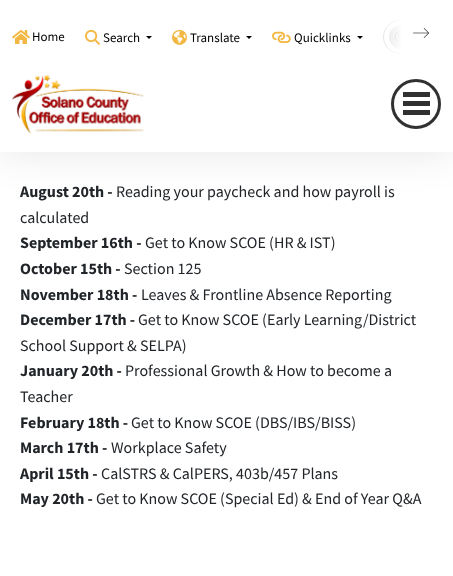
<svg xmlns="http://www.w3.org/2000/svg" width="453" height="576">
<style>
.a{font:13px Source Sans Pro;fill:#000}
.b{font:bold 16px Source Sans Pro;fill:#212529}
.c{font:16px Source Sans Pro;fill:#212529}
</style>
<defs>
<clipPath id="clip1"><path d="M12 20h429v34H12z"/></clipPath>
<linearGradient id="g1" gradientUnits="userSpaceOnUse" x1="371" y1="34" x2="441" y2="34"><stop offset="0" stop-color="#fff" stop-opacity="0"/><stop offset="0.44" stop-color="#fff"/></linearGradient>
</defs>
<rect width="100%" height="100%" fill="#fff"/>
<path fill="#0000001a" filter="blur(20px)" d="M0 0h453v152H0z"/>
<path fill="#fff" d="M0 0h453v152H0z"/>
<image href="1.png" x="12" y="30" width="18" height="14"/>
<image href="2.png" x="85" y="29" width="15" height="16"/>
<path fill="#000" d="M146 36h6l-3 3z"/>
<image href="3.png" x="172" y="29" width="15" height="16"/>
<path fill="#000" d="M246 36h6l-3 3z"/>
<image href="4.png" x="272" y="31" width="19" height="12"/>
<path fill="#000" d="M357 36h6l-3 3z"/>
<g clip-path="url(#clip1)">
<rect fill="none" stroke="#d4d5d6" x="383.5" y="20.5" width="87" height="33" rx="16.5"/>
</g>
<circle fill="#d4d5d6" cx="401" cy="37" r="12"/>
<image href="5.png" x="395" y="31" width="7" height="11"/>
<path fill="url(#g1)" d="M383 20h58v34H383z"/>
<image href="6.png" x="413" y="28" width="16" height="10"/>
<image href="7.png" x="12" y="74" width="132" height="60"/>
<circle fill="none" stroke="#313131" stroke-width="3" cx="416" cy="104" r="23.5"/>
<path fill="#313131" d="M403 92h27v5H403z"/>
<path fill="#313131" d="M403 101h27v5H403z"/>
<path fill="#313131" d="M403 110h27v5H403z"/>
<text class="a" x="32" y="41">Home</text>
<text class="a" x="103" y="42">Search</text>
<text class="a" x="190" y="42">Translate</text>
<text class="a" x="294" y="42">Quicklinks</text>
<text class="b" x="20" y="197">August 20th -</text>
<text class="c" x="116" y="197">Reading your paycheck and how payroll is</text>
<text class="c" x="20" y="223">calculated</text>
<text class="b" x="20" y="248">September 16th -</text>
<text class="c" x="145" y="248">Get to Know SCOE (HR &amp; IST)</text>
<text class="b" x="20" y="274">October 15th -</text>
<text class="c" x="124" y="274">Section 125</text>
<text class="b" x="20" y="300">November 18th -</text>
<text class="c" x="141" y="300">Leaves &amp; Frontline Absence Reporting</text>
<text class="b" x="20" y="325">December 17th -</text>
<text class="c" x="138" y="325">Get to Know SCOE (Early Learning/District</text>
<text class="c" x="20" y="351">School Support &amp; SELPA)</text>
<text class="b" x="20" y="376">January 20th -</text>
<text class="c" x="125" y="376">Professional Growth &amp; How to become a</text>
<text class="c" x="20" y="402">Teacher</text>
<text class="b" x="20" y="428">February 18th -</text>
<text class="c" x="131" y="428">Get to Know SCOE (DBS/IBS/BISS)</text>
<text class="b" x="20" y="453">March 17th -</text>
<text class="c" x="111" y="453">Workplace Safety</text>
<text class="b" x="20" y="479">April 15th -</text>
<text class="c" x="101" y="479">CalSTRS &amp; CalPERS, 403b/457 Plans</text>
<text class="b" x="20" y="504">May 20th -</text>
<text class="c" x="96" y="504">Get to Know SCOE (Special Ed) &amp; End of Year Q&amp;A</text>
</svg>
